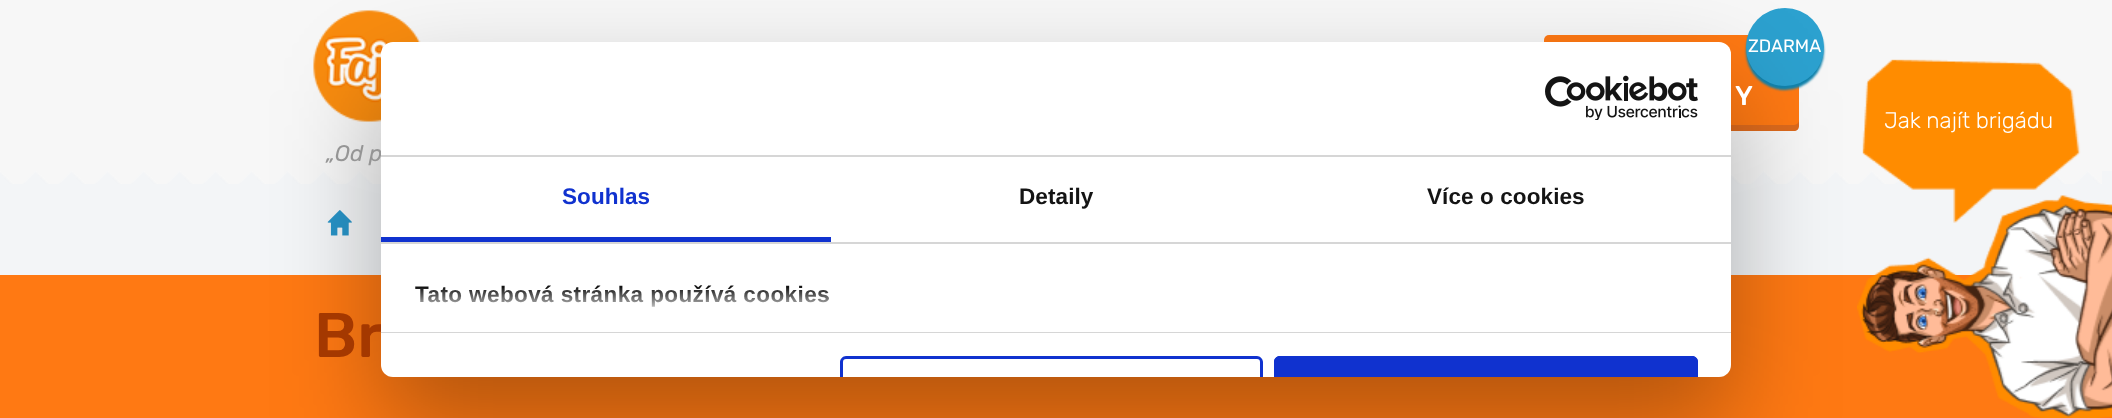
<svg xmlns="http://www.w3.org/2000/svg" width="2112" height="418">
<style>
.a{font:18px Rubik;fill:#fff}
.b{font:500 27px Rubik;fill:#fff}
.c{font:italic 22.5px Rubik;fill:#959595}
.d{font:300 22.5px Rubik;fill:#fff}
.e{font:500 63px Rubik;fill:#a43800}
.f{font:bold 22.5px Liberation Sans;letter-spacing:0.4px;fill:#141414}
.g{font:bold 22.5px Liberation Sans;letter-spacing:0.1px;fill:#141414}
.h{font:bold 22.5px Liberation Sans;letter-spacing:0.1px;fill:#1032cf}
</style>
<defs>
<linearGradient id="g1" gradientUnits="userSpaceOnUse" x1="1041" y1="332" x2="1041" y2="287"><stop offset="0" stop-color="#fff"/><stop offset="0.5" stop-color="#fff" stop-opacity="0.8"/><stop offset="1" stop-color="#fff" stop-opacity="0"/></linearGradient>
</defs>
<rect width="100%" height="100%" fill="#f3f5f7"/>
<path fill="#f7f7f7" d="M0 0h2112v171H0z"/>
<path fill="#dd6a1d" d="M1544 122v4c0 3 2 5 5 5h245c3 0 5-2 5-5v-80l-1-2v76c0 2-2 4-4 4h-246c-2 0-3 0-4-2z"/>
<rect fill="#ff7913" x="1544" y="35" width="255" height="90" rx="5"/>
<rect fill="#1283ac" filter="blur(1px)" x="1746" y="12" width="78" height="78" rx="39"/>
<circle fill="#2ca1cf" cx="1785" cy="47" r="39"/>
<image href="1.png" x="313" y="10" width="108" height="112"/>
<image href="2.png" x="0" y="171" width="2102" height="13"/>
<path fill="#ff7913" d="M0 275h2112v143H0z"/>
<image href="3.png" x="1857" y="59" width="255" height="359"/>
<image href="4.png" x="327" y="210" width="25" height="26"/>
<rect fill="#0000004d" filter="blur(51px)" x="381" y="90" width="1350" height="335" rx="12"/>
<text class="a" x="1748" y="52">ZDARMA</text>
<text class="b" x="1735" y="105">Y</text>
<text class="c" x="326" y="161">„Od p</text>
<text class="d" x="1884" y="128">Jak najít brigádu</text>
<text class="e" x="314" y="357">Br</text>
<rect fill="#fff" x="381" y="42" width="1350" height="335" rx="12"/>
<text class="f" x="415" y="302">Tato webová stránka používá cookies</text>
<path fill="url(#g1)" d="M415 288h413v19H415z"/>
<path fill="#1032cf" d="M1280 356h412c3.5 0 6 2.5 6 6v15h-424v-15c0-3.5 2.5-6 6-6z"/>
<path fill="#1032cf" d="M1280 356c-3 0-6 3-6 6v15h3v-15c0-2 1-3 3-3h412c2 0 3 1 3 3v15h3v-15c0-3-3-6-6-6z"/>
<path fill="#1032cf" d="M846 356c-3 0-6 3-6 6v15h3v-15c0-2 1-3 3-3h411c2 0 3 1 3 3v15h3v-15c0-3-3-6-6-6z"/>
<path fill="#d6d6d6" d="M381 332h1350v1H381z"/>
<text class="g" x="1427" y="204">Více o cookies</text>
<text class="g" x="1019" y="204">Detaily</text>
<text class="h" x="562" y="204">Souhlas</text>
<path fill="#1032cf" d="M381 237h450v5H381z"/>
<path fill="#d6d6d6" d="M381 242h1350v2H381z"/>
<image href="5.png" x="1545" y="75" width="153" height="45"/>
<path fill="#d6d6d6" d="M381 155h1350v2H381z"/>
</svg>
